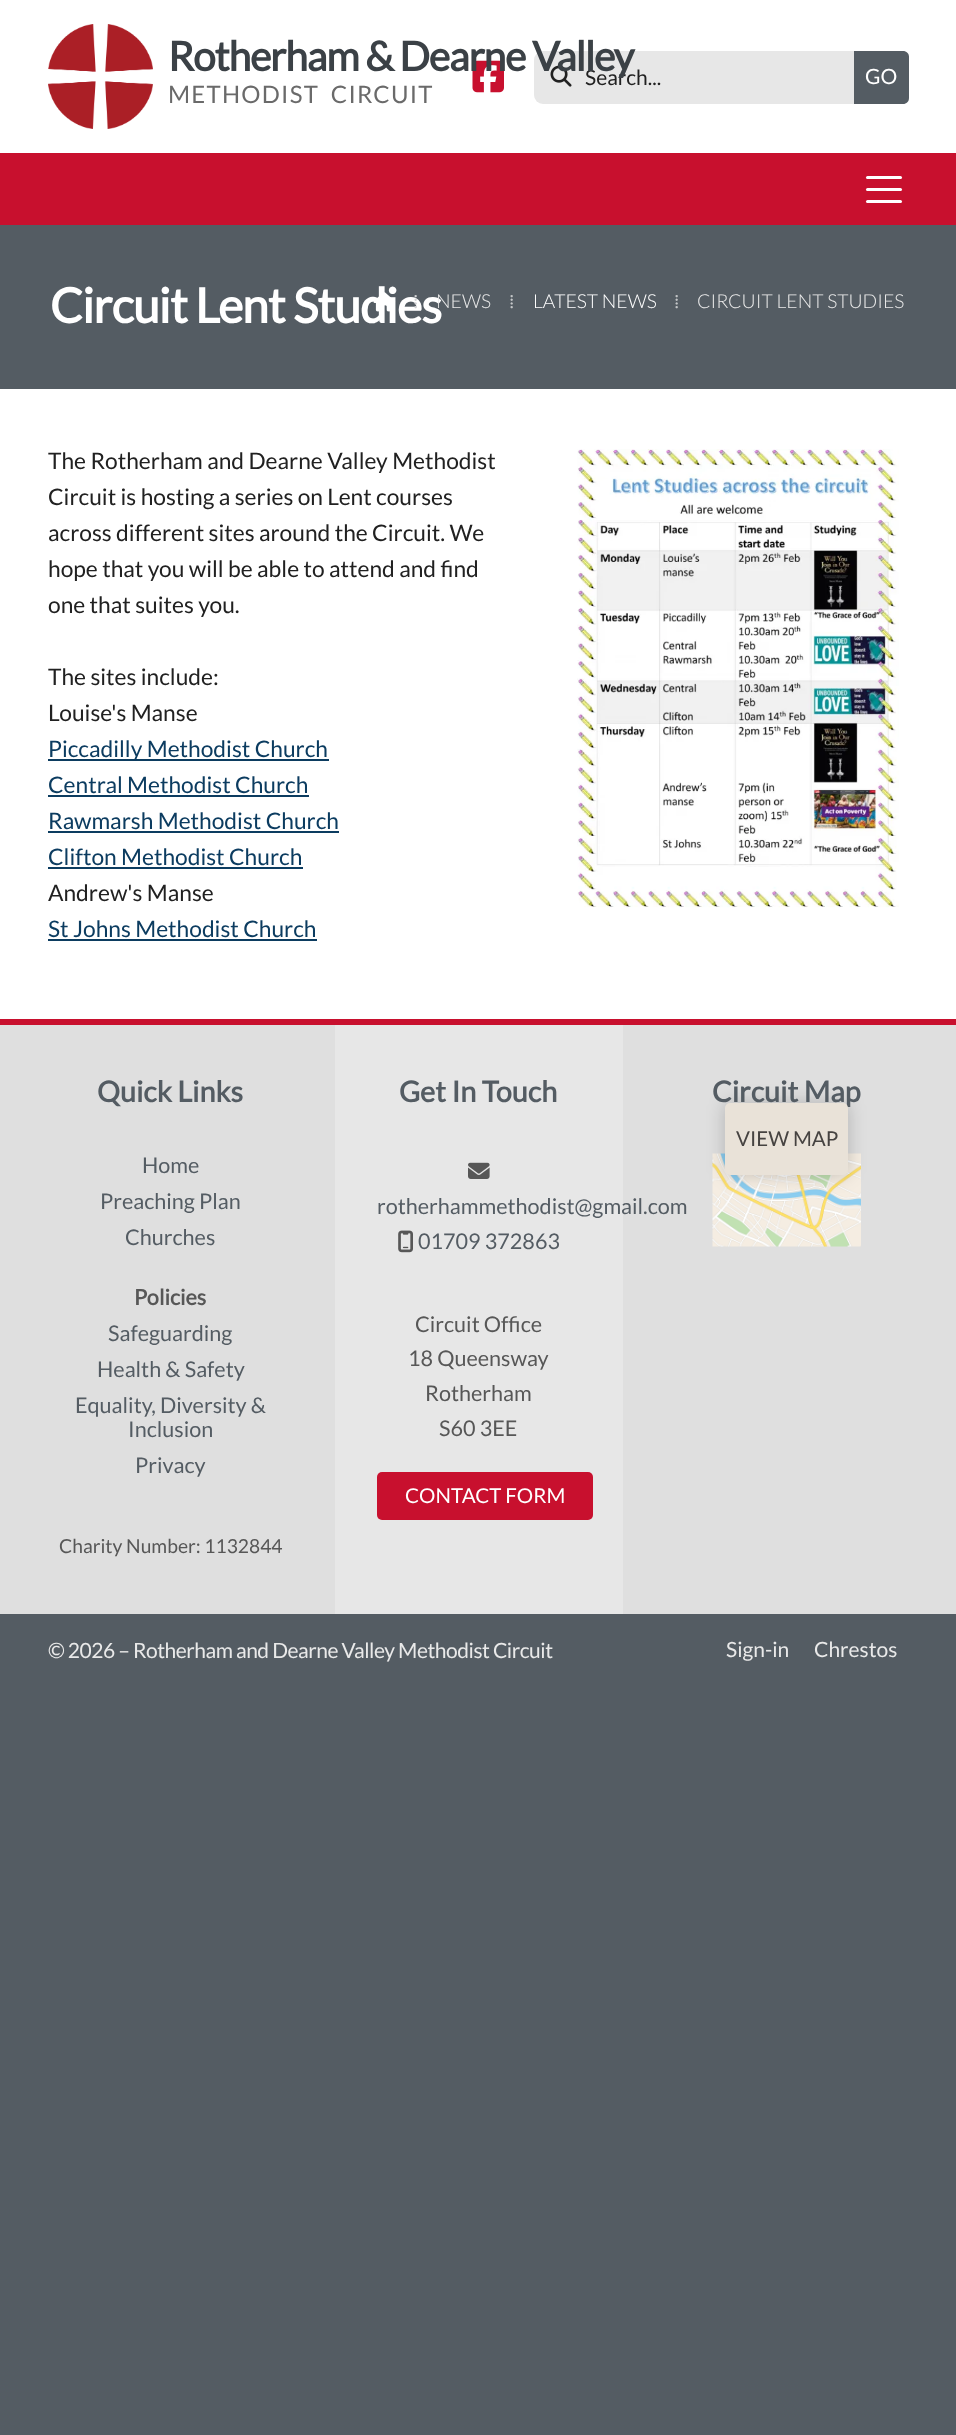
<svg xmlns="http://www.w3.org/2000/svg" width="956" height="2435">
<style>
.a{font:21px Lato;fill:#212121}
.b{font:bold 40.75px Lato;letter-spacing:-1.2px;fill:#3b4146}
.c{font:21px Lato;fill:#fff}
.d{font:24px Lato;letter-spacing:1.25px;fill:#6a6a6a}
.e{font:bold 48px Lato;letter-spacing:-1px;fill:#fff}
.f{font:19.25px Liberation Serif;fill:#d1d2d4}
.g{font:300 19.25px Lato;fill:#e9e9e9}
.h{font:19.25px Liberation Serif;fill:#c4c6c8}
.i{font:300 19.25px Lato;fill:#fff}
.j{font:22.75px Lato;fill:#212121}
.k{font:22.75px Lato;fill:#0c3c60}
.l{font:bold 28.75px Lato;fill:#545c63}
.m{font:21.6px Lato;fill:#545c63}
.n{font:bold 21.6px Lato;fill:#575757}
.o{font:19.25px Lato;fill:#575757}
.p{font:21.6px Lato;fill:#575757}
.q{font:20.5px Lato;fill:#fff}
.r{font:20.5px Lato;fill:#464341}
.s{font:21px Lato;letter-spacing:-0.48px;fill:#e9e9e9}
.t{font:21px Lato;fill:#e9e9e9}
</style>
<rect width="100%" height="100%" fill="#545c63"/>
<path fill="#fff" d="M0 389h956v630H0z"/>
<path fill="#fff" d="M0 0h956v153H0z"/>
<image href="1.png" x="48" y="24" width="105" height="105"/>
<image href="2.png" x="472" y="60" width="32" height="33"/>
<rect fill="#e7e7e7" x="534" y="51" width="375" height="53" rx="9"/>
<image href="3.png" x="550" y="65" width="22" height="22"/>
<path fill="#545c63" d="M854 51h49c3.5 0 6 2.5 6 6v41c0 3.5-2.5 6-6 6h-49z"/>
<path fill="#c8102e" d="M0 153h956v72H0z"/>
<rect fill="#fff" x="866" y="176" width="36" height="3" rx="1.5"/>
<rect fill="#fff" x="866" y="188" width="36" height="3" rx="1.5"/>
<rect fill="#fff" x="866" y="200" width="36" height="3" rx="1.5"/>
<image href="5.png" x="577" y="449" width="322" height="459"/>
<path fill="#0c3c60" d="M48 759h281v2H48z"/>
<path fill="#0c3c60" d="M48 795h261v2H48z"/>
<path fill="#0c3c60" d="M48 831h291v2H48z"/>
<path fill="#0c3c60" d="M48 867h255v2H48z"/>
<path fill="#0c3c60" d="M48 939h269v2H48z"/>
<path fill="#dfdfdf" d="M0 1025h956v589H0z"/>
<path fill="#c8102e" d="M0 1019h956v6H0z"/>
<path fill="#e7e7e7" d="M335 1025h288v589H335z"/>
<image href="6.png" x="468" y="1162" width="22" height="17"/>
<image href="7.png" x="398" y="1230" width="15" height="23"/>
<rect fill="#c8102e" x="377" y="1472" width="216" height="48" rx="5"/>
<image href="8.png" x="712" y="1153" width="149" height="94"/>
<rect fill="#00000033" filter="blur(9px)" x="725" y="1103" width="123" height="72" rx="5"/>
<text class="a" x="585" y="85">Search...</text>
<text class="b" x="168" y="71">Rotherham &amp; Dearne Valley</text>
<text class="c" x="865" y="84">GO</text>
<text class="d" xml:space="preserve" x="168" y="103">METHODIST  CIRCUIT</text>
<text class="e" x="50" y="323">Circuit Lent Studies</text>
<image href="4.png" x="373" y="292" width="23" height="20"/>
<text class="f" x="413" y="308">⁞</text>
<text class="g" x="436" y="308">NEWS</text>
<text class="h" x="509" y="308">⁞</text>
<text class="i" x="533" y="308">LATEST NEWS</text>
<text class="h" x="674" y="308">⁞</text>
<text class="g" x="697" y="308">CIRCUIT LENT STUDIES</text>
<text class="j" x="48" y="469">The Rotherham and Dearne Valley Methodist</text>
<text class="j" x="48" y="505">Circuit is hosting a series on Lent courses</text>
<text class="j" x="48" y="541">across different sites around the Circuit. We</text>
<text class="j" x="48" y="577">hope that you will be able to attend and find</text>
<text class="j" x="48" y="613">one that suites you.</text>
<text class="j" x="48" y="685">The sites include:</text>
<text class="j" x="48" y="721">Louise's Manse</text>
<text class="k" x="48" y="757">Piccadilly Methodist Church</text>
<text class="k" x="48" y="793">Central Methodist Church</text>
<text class="k" x="48" y="829">Rawmarsh Methodist Church</text>
<text class="k" x="48" y="865">Clifton Methodist Church</text>
<text class="j" x="48" y="901">Andrew's Manse</text>
<text class="k" x="48" y="937">St Johns Methodist Church</text>
<text class="l" x="97" y="1102">Quick Links</text>
<text class="m" x="142" y="1173">Home</text>
<text class="m" x="100" y="1209">Preaching Plan</text>
<text class="m" x="125" y="1245">Churches</text>
<text class="n" x="134" y="1305">Policies</text>
<text class="m" x="108" y="1341">Safeguarding</text>
<text class="m" x="97" y="1377">Health &amp; Safety</text>
<text class="m" x="75" y="1413">Equality, Diversity &amp;</text>
<text class="m" x="128" y="1437">Inclusion</text>
<text class="m" x="135" y="1473">Privacy</text>
<text class="o" x="59" y="1553">Charity Number: 1132844</text>
<text class="l" x="399" y="1102">Get In Touch</text>
<text class="m" x="377" y="1214">rotherhammethodist@gmail.com</text>
<text class="m" x="418" y="1249">01709 372863</text>
<text class="p" x="415" y="1332">Circuit Office</text>
<text class="p" x="408" y="1366">18 Queensway</text>
<text class="p" x="425" y="1401">Rotherham</text>
<text class="p" x="439" y="1436">S60 3EE</text>
<text class="q" x="405" y="1503">CONTACT FORM</text>
<text class="l" x="712" y="1102">Circuit Map</text>
<rect fill="#e9e2d8" x="725" y="1103" width="123" height="72" rx="5"/>
<text class="r" x="736" y="1146">VIEW MAP</text>
<text class="s" x="48" y="1658">© 2026 – Rotherham and Dearne Valley Methodist Circuit</text>
<text class="t" x="726" y="1657">Sign-in</text>
<text class="t" x="814" y="1657">Chrestos</text>
</svg>
